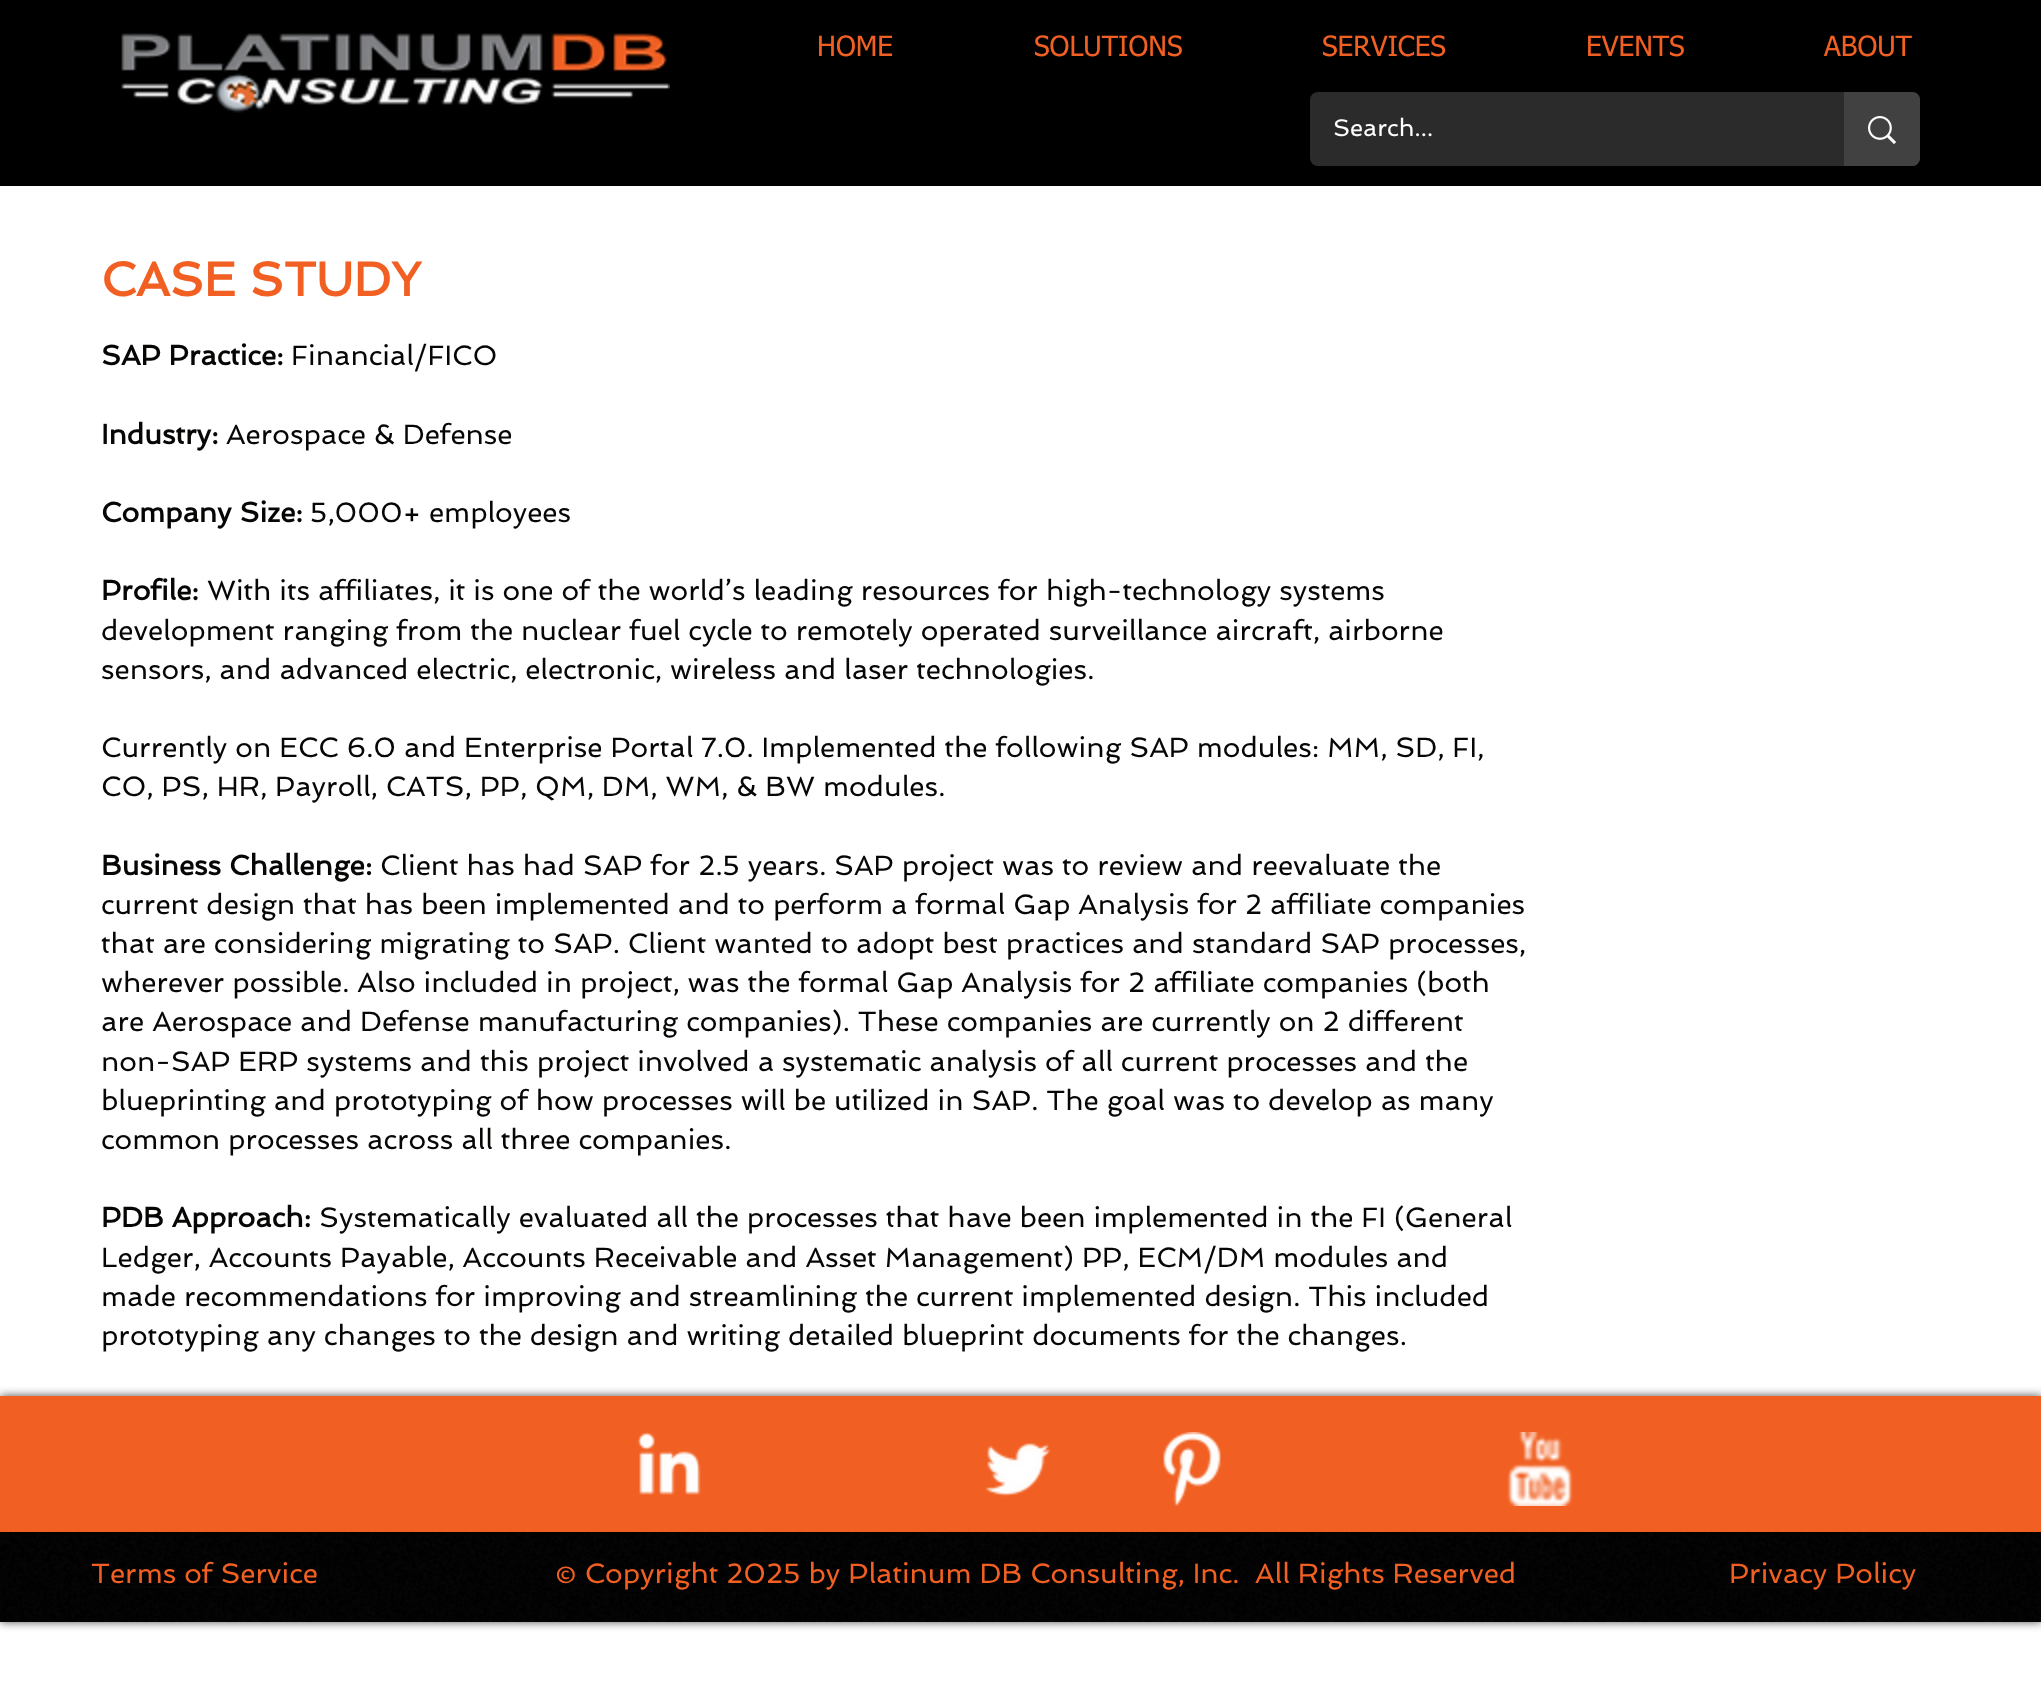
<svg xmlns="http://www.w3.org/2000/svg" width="2041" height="1696">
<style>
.a{font:28px tahoma;fill:#f16022}
.b{font:24px Spinnaker;fill:#fff}
.c{font:bold 48px Spinnaker;fill:#f16022}
.d{font:bold 28px Spinnaker;fill:#060605}
.e{font:28px Spinnaker;fill:#060605}
.f{font:28px Spinnaker;fill:#f16022}
</style>
<rect width="100%" height="100%" fill="#fff"/>
<path fill="#000" d="M0 0h2041v186H0z"/>
<image href="1.png" x="121" y="33" width="549" height="80"/>
<rect fill="#2b2b2b" x="1310" y="92" width="610" height="74" rx="8"/>
<path fill="#414141" d="M1844 92h68c4.5 0 8 3.5 8 8v58c0 4.5-3.5 8-8 8h-68z"/>
<image href="2.png" x="1868" y="116" width="28" height="28"/>
<path fill="#000000b3" filter="blur(5px)" d="M0 1396h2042v226H0z"/>
<path fill="#000" d="M0 1532h2041v90H0z"/>
<image href="3.png" x="0" y="1532" width="2041" height="90"/>
<path fill="#f16022" d="M0 1396h2041v136H0z"/>
<image href="4.png" x="637" y="1432" width="64" height="63"/>
<image href="5.png" x="985" y="1443" width="66" height="54"/>
<image href="6.png" x="1163" y="1432" width="58" height="74"/>
<image href="7.png" x="1507" y="1432" width="66" height="74"/>
<path fill="#060605" d="M92 1586h226v2H92z"/>
<path fill="#060605" d="M1730 1586h186v2H1730z"/>
<text class="a" x="817" y="56">HOME</text>
<text class="a" x="1034" y="56">SOLUTIONS</text>
<text class="a" x="1322" y="56">SERVICES</text>
<text class="a" x="1586" y="56">EVENTS</text>
<text class="a" x="1824" y="56">ABOUT</text>
<text class="b" x="1333" y="136">Search...</text>
<text class="c" x="101" y="296">CASE STUDY</text>
<text class="d" x="101" y="365">SAP Practice:</text>
<text class="e" x="291" y="365">Financial/FICO</text>
<text class="d" x="101" y="444">Industry:</text>
<text class="e" x="226" y="444">Aerospace &amp; Defense</text>
<text class="d" x="101" y="522">Company Size:</text>
<text class="e" x="310" y="522">5,000+ employees</text>
<text class="d" x="101" y="600">Profile:</text>
<text class="e" x="207" y="600">With its affiliates, it is one of the world’s leading resources for high-technology systems</text>
<text class="e" x="101" y="640">development ranging from the nuclear fuel cycle to remotely operated surveillance aircraft, airborne</text>
<text class="e" x="101" y="679">sensors, and advanced electric, electronic, wireless and laser technologies.</text>
<text class="e" x="101" y="757">Currently on ECC 6.0 and Enterprise Portal 7.0. Implemented the following SAP modules: MM, SD, FI,</text>
<text class="e" x="101" y="796">CO, PS, HR, Payroll, CATS, PP, QM, DM, WM, &amp; BW modules.</text>
<text class="d" x="101" y="875">Business Challenge:</text>
<text class="e" x="380" y="875">Client has had SAP for 2.5 years. SAP project was to review and reevaluate the</text>
<text class="e" x="101" y="914">current design that has been implemented and to perform a formal Gap Analysis for 2 affiliate companies</text>
<text class="e" x="101" y="953">that are considering migrating to SAP. Client wanted to adopt best practices and standard SAP processes,</text>
<text class="e" x="101" y="992">wherever possible. Also included in project, was the formal Gap Analysis for 2 affiliate companies (both</text>
<text class="e" x="101" y="1031">are Aerospace and Defense manufacturing companies). These companies are currently on 2 different</text>
<text class="e" x="101" y="1071">non-SAP ERP systems and this project involved a systematic analysis of all current processes and the</text>
<text class="e" x="101" y="1110">blueprinting and prototyping of how processes will be utilized in SAP. The goal was to develop as many</text>
<text class="e" x="101" y="1149">common processes across all three companies.</text>
<text class="d" x="101" y="1227">PDB Approach:</text>
<text class="e" x="319" y="1227">Systematically evaluated all the processes that have been implemented in the FI (General</text>
<text class="e" x="101" y="1267">Ledger, Accounts Payable, Accounts Receivable and Asset Management) PP, ECM/DM modules and</text>
<text class="e" x="101" y="1306">made recommendations for improving and streamlining the current implemented design. This included</text>
<text class="e" x="101" y="1345">prototyping any changes to the design and writing detailed blueprint documents for the changes.</text>
<text class="f" x="91" y="1583">Terms of Service</text>
<text class="f" x="555" y="1583">© Copyright 2025 by Platinum DB Consulting, Inc.</text>
<text class="f" x="1255" y="1583">All Rights Reserved</text>
<text class="f" x="1729" y="1583">Privacy Policy</text>
</svg>
